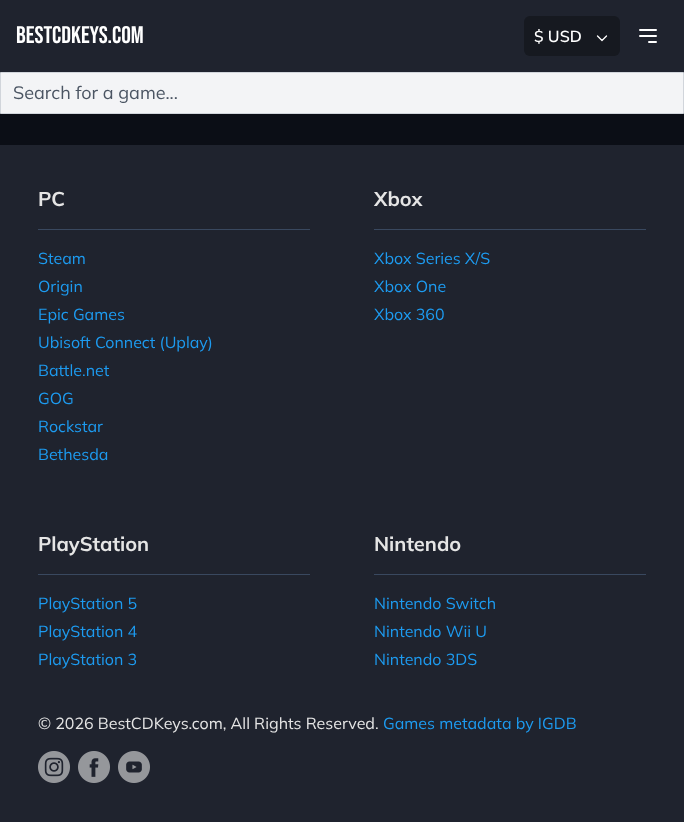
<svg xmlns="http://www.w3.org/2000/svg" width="684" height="822">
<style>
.a{font:24px Bebas Neue;fill:#fff}
.b{font:600 16px Mulish;fill:#fff}
.c{font:18px Mulish;fill:#4b5563}
.d{font:bold 20px Mulish;fill:#e5e5e5}
.e{font:16px Mulish;fill:#1d9bf0}
.f{font:16px Mulish;fill:#e5e5e5}
</style>
<rect width="100%" height="100%" fill="#0b0e16"/>
<path fill="#1f232e" d="M0 0h684v72H0z"/>
<rect fill="#161920" x="524" y="16" width="96" height="40" rx="6"/>
<path fill="none" stroke="#fff" stroke-width="1.3" stroke-linecap="round" stroke-linejoin="round" d="M606.5 36l-4.5 4.5l-4.5-4.5"/>
<path fill="none" stroke="#fff" stroke-width="2" stroke-linecap="round" stroke-linejoin="round" d="M640 30h16m-16 6h16m-7 6h7"/>
<path fill="#f3f4f6" stroke="#d1d5db" d="M0.5 72.5h683v41H0.5z"/>
<path fill="#1f232e" d="M0 145h684v677H0z"/>
<path fill="#39485f" d="M38 229h272v1H38z"/>
<path fill="#39485f" d="M374 229h272v1H374z"/>
<path fill="#39485f" d="M38 574h272v1H38z"/>
<path fill="#39485f" d="M374 574h272v1H374z"/>
<image href="1.png" x="38" y="751" width="32" height="32"/>
<image href="2.png" x="78" y="751" width="32" height="32"/>
<image href="3.png" x="118" y="751" width="32" height="32"/>
<text class="a" x="16" y="43">BESTCDKEYS.COM</text>
<text class="b" x="534" y="42">$ USD</text>
<text class="c" x="13" y="99">Search for a game...</text>
<text class="d" x="38" y="206">PC</text>
<text class="e" x="38" y="264">Steam</text>
<text class="e" x="38" y="292">Origin</text>
<text class="e" x="38" y="320">Epic Games</text>
<text class="e" x="38" y="348">Ubisoft Connect (Uplay)</text>
<text class="e" x="38" y="376">Battle.net</text>
<text class="e" x="38" y="404">GOG</text>
<text class="e" x="38" y="432">Rockstar</text>
<text class="e" x="38" y="460">Bethesda</text>
<text class="d" x="374" y="206">Xbox</text>
<text class="e" x="374" y="264">Xbox Series X/S</text>
<text class="e" x="374" y="292">Xbox One</text>
<text class="e" x="374" y="320">Xbox 360</text>
<text class="d" x="38" y="551">PlayStation</text>
<text class="e" x="38" y="609">PlayStation 5</text>
<text class="e" x="38" y="637">PlayStation 4</text>
<text class="e" x="38" y="665">PlayStation 3</text>
<text class="d" x="374" y="551">Nintendo</text>
<text class="e" x="374" y="609">Nintendo Switch</text>
<text class="e" x="374" y="637">Nintendo Wii U</text>
<text class="e" x="374" y="665">Nintendo 3DS</text>
<text class="f" x="38" y="729">© 2026 BestCDKeys.com, All Rights Reserved.</text>
<text class="e" x="383" y="729">Games metadata by IGDB</text>
</svg>
